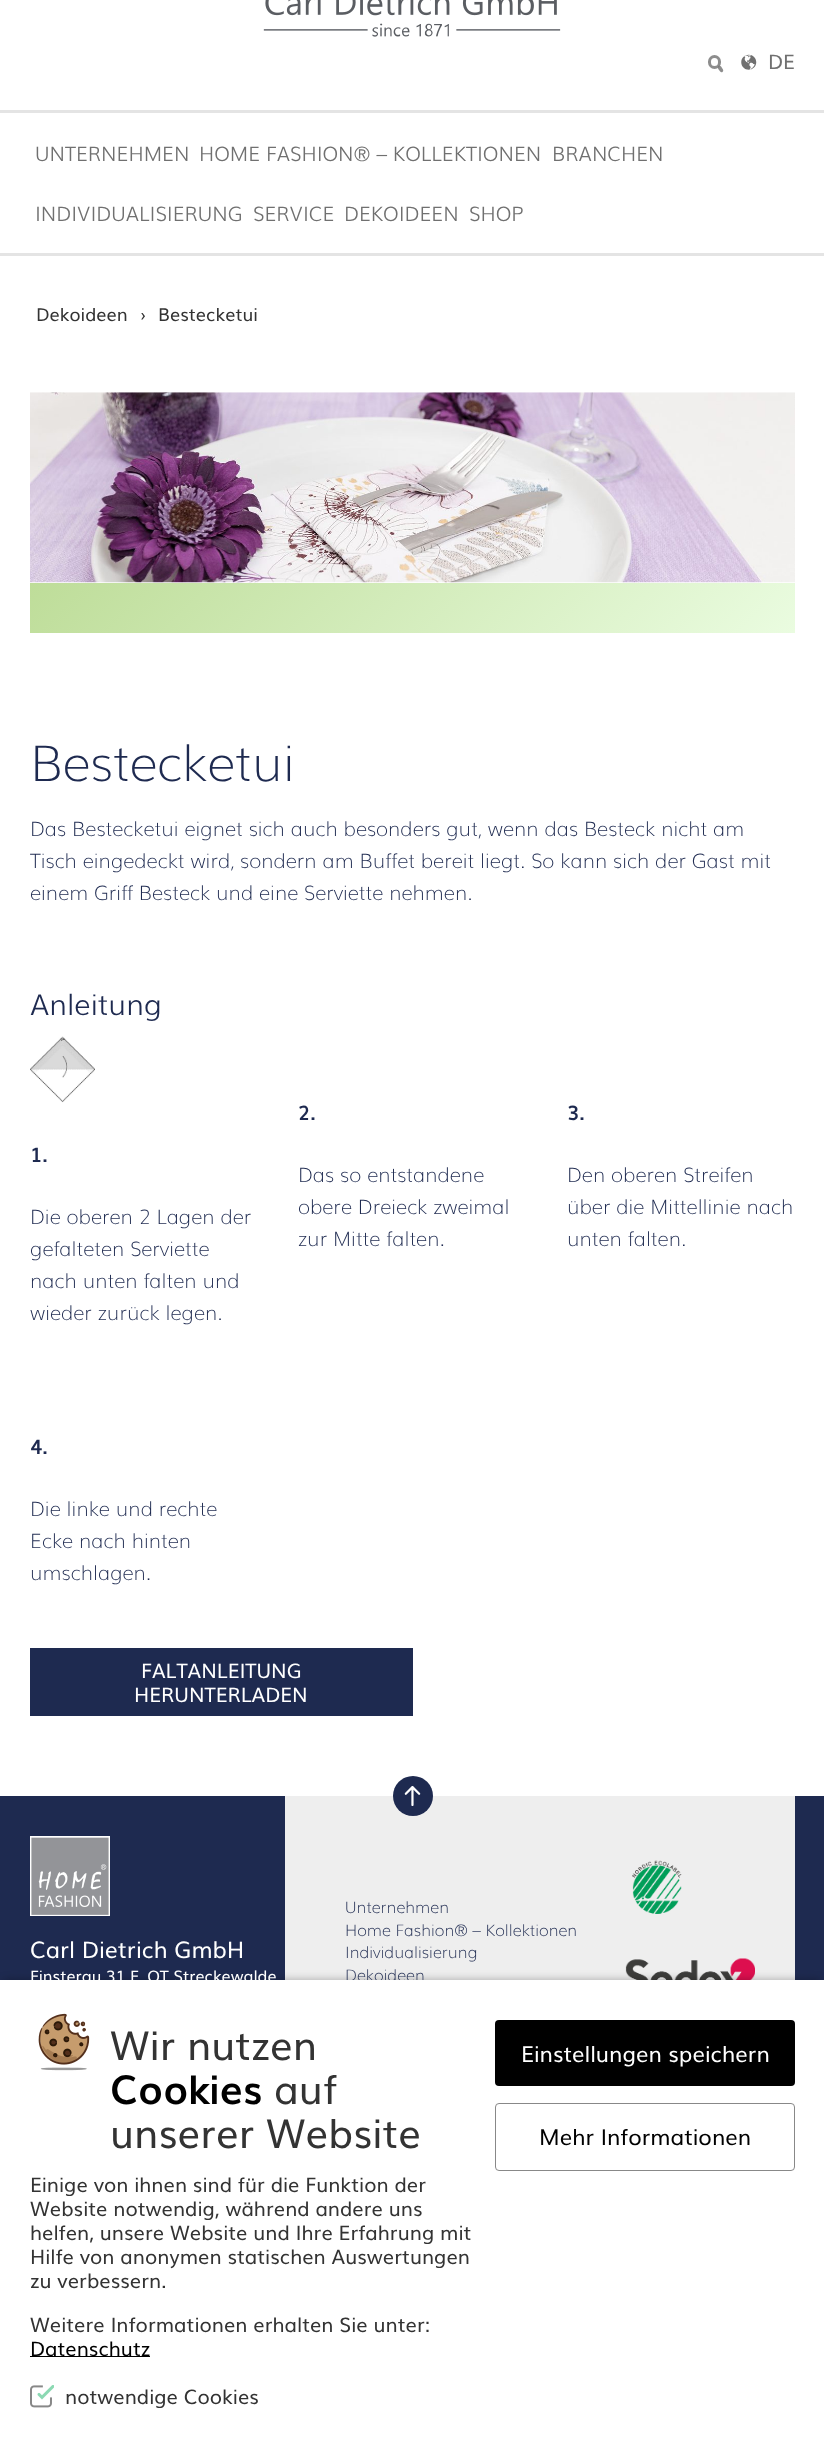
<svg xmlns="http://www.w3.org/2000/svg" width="824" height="2447">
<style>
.a{font:20px Muli;fill:#707070}
.b{font:300 20px Muli;fill:#707070}
.c{font:18px Muli;fill:#333}
.d{font:200 49.75px Muli;fill:#1e2a50}
.e{font:200 20px Muli;fill:#1e2a50}
.f{font:300 29px Muli;fill:#1e2a50}
.g{font:bold 20px Muli;fill:#1e2a50}
.h{font:20px Muli;fill:#fff}
.i{font:23px Muli;fill:#fff}
.j{font:16px Muli;fill:#fff}
.k{font:200 16px Muli;fill:#1e2a50}
.l{font:40px Muli;fill:#333}
.m{font:bold 40px Muli;fill:#000}
.n{font:20px Muli;fill:#333}
.o{font:20px Muli;fill:#000}
.p{font:22px Muli;fill:#fff}
.q{font:22px Muli;fill:#000}
</style>
<defs>
<linearGradient id="g1" gradientUnits="userSpaceOnUse" x1="209" y1="404" x2="616" y2="811"><stop offset="0" stop-color="#bedd99"/><stop offset="1" stop-color="#eafce0"/></linearGradient>
</defs>
<rect width="100%" height="100%" fill="#fff"/>
<image href="1.png" x="263" y="0" width="298" height="37"/>
<rect fill="none" stroke="#8d8d8d" stroke-width="3" x="709.5" y="56.5" width="10" height="11" rx="5"/>
<path fill="#707070cc" d="M718.5 66c2-1 3 1 3.5 2c1 1 2 3 .5 4c-1.5 1-2.5-.5-3.5-2c-1-1-2-3-.5-4z"/>
<image href="2.png" x="741" y="54" width="16" height="16"/>
<path fill="#e4e4e4" d="M0 110h824v3H0z"/>
<path fill="#e4e4e4" d="M0 253h824v3H0z"/>
<image href="3.png" x="30" y="392" width="765" height="191"/>
<path fill="url(#g1)" d="M30 583h765v50H30z"/>
<image href="4.png" x="30" y="1036" width="65" height="67"/>
<path fill="#1e2a50" d="M30 1648h383v68H30z"/>
<path fill="#1e2a50" d="M0 1796h824v184H0z"/>
<path fill="#eee" d="M285 1796h510v184H285z"/>
<circle fill="#1e2a50" cx="413" cy="1796" r="20"/>
<image href="5.png" x="404" y="1786" width="17" height="20"/>
<image href="6.png" x="30" y="1836" width="80" height="80"/>
<image href="7.png" x="632" y="1860" width="50" height="54"/>
<image href="8.png" x="625" y="1958" width="130" height="22"/>
<path fill="#0000004d" filter="blur(4px)" d="M4 1980h817v460H4z"/>
<text class="a" x="768" y="69">DE</text>
<text class="b" x="35" y="161">UNTERNEHMEN</text>
<text class="b" x="199" y="161">HOME FASHION® – KOLLEKTIONEN</text>
<text class="b" x="552" y="161">BRANCHEN</text>
<text class="b" x="35" y="221">INDIVIDUALISIERUNG</text>
<text class="b" x="253" y="221">SERVICE</text>
<text class="b" x="344" y="221">DEKOIDEEN</text>
<text class="b" x="469" y="221">SHOP</text>
<text class="c" x="36" y="321">Dekoideen</text>
<text class="c" x="140" y="321">›</text>
<text class="c" x="158" y="321">Bestecketui</text>
<text class="d" x="30" y="781">Bestecketui</text>
<text class="e" x="30" y="836">Das Bestecketui eignet sich auch besonders gut, wenn das Besteck nicht am</text>
<text class="e" x="30" y="868">Tisch eingedeckt wird, sondern am Buffet bereit liegt. So kann sich der Gast mit</text>
<text class="e" x="30" y="900">einem Griff Besteck und eine Serviette nehmen.</text>
<text class="f" x="30" y="1015">Anleitung</text>
<text class="g" x="30" y="1162">1.</text>
<text class="e" x="30" y="1224">Die oberen 2 Lagen der</text>
<text class="e" x="30" y="1256">gefalteten Serviette</text>
<text class="e" x="30" y="1288">nach unten falten und</text>
<text class="e" x="30" y="1320">wieder zurück legen.</text>
<text class="g" x="298" y="1120">2.</text>
<text class="e" x="298" y="1182">Das so entstandene</text>
<text class="e" x="298" y="1214">obere Dreieck zweimal</text>
<text class="e" x="298" y="1246">zur Mitte falten.</text>
<text class="g" x="567" y="1120">3.</text>
<text class="e" x="567" y="1182">Den oberen Streifen</text>
<text class="e" x="567" y="1214">über die Mittellinie nach</text>
<text class="e" x="567" y="1246">unten falten.</text>
<text class="g" x="30" y="1454">4.</text>
<text class="e" x="30" y="1516">Die linke und rechte</text>
<text class="e" x="30" y="1548">Ecke nach hinten</text>
<text class="e" x="30" y="1580">umschlagen.</text>
<text class="h" x="141" y="1678">FALTANLEITUNG</text>
<text class="h" x="134" y="1702">HERUNTERLADEN</text>
<text class="i" x="30" y="1958">Carl Dietrich GmbH</text>
<text class="j" x="30" y="1982">Finsterau 31 F, OT Streckewalde</text>
<text class="k" x="345" y="1913">Unternehmen</text>
<text class="k" x="345" y="1936">Home Fashion® – Kollektionen</text>
<text class="k" x="345" y="1958">Individualisierung</text>
<text class="k" x="345" y="1981">Dekoideen</text>
<path fill="#fff" d="M0 1980h824v467H0z"/>
<image href="9.png" x="38" y="2013" width="52" height="58"/>
<text class="l" x="110" y="2060">Wir nutzen</text>
<text class="m" x="110" y="2104">Cookies</text>
<text class="l" x="274" y="2104">auf</text>
<text class="l" x="110" y="2148">unserer Website</text>
<text class="n" x="30" y="2192">Einige von ihnen sind für die Funktion der</text>
<text class="n" x="30" y="2216">Website notwendig, während andere uns</text>
<text class="n" x="30" y="2240">helfen, unsere Website und Ihre Erfahrung mit</text>
<text class="n" x="30" y="2264">Hilfe von anonymen statischen Auswertungen</text>
<text class="n" x="30" y="2288">zu verbessern.</text>
<text class="n" x="30" y="2332">Weitere Informationen erhalten Sie unter:</text>
<path fill="#000" d="M30 2356h120v1H30z"/>
<text class="o" x="30" y="2356">Datenschutz</text>
<image href="10.png" x="30" y="2385" width="24" height="23"/>
<text class="n" x="65" y="2404">notwendige Cookies</text>
<rect fill="#000" x="495" y="2020" width="300" height="66" rx="4"/>
<text class="p" x="521" y="2062">Einstellungen speichern</text>
<rect fill="none" stroke="#888" x="495.5" y="2103.5" width="299" height="67" rx="3.5"/>
<text class="q" x="539" y="2145">Mehr Informationen</text>
</svg>
